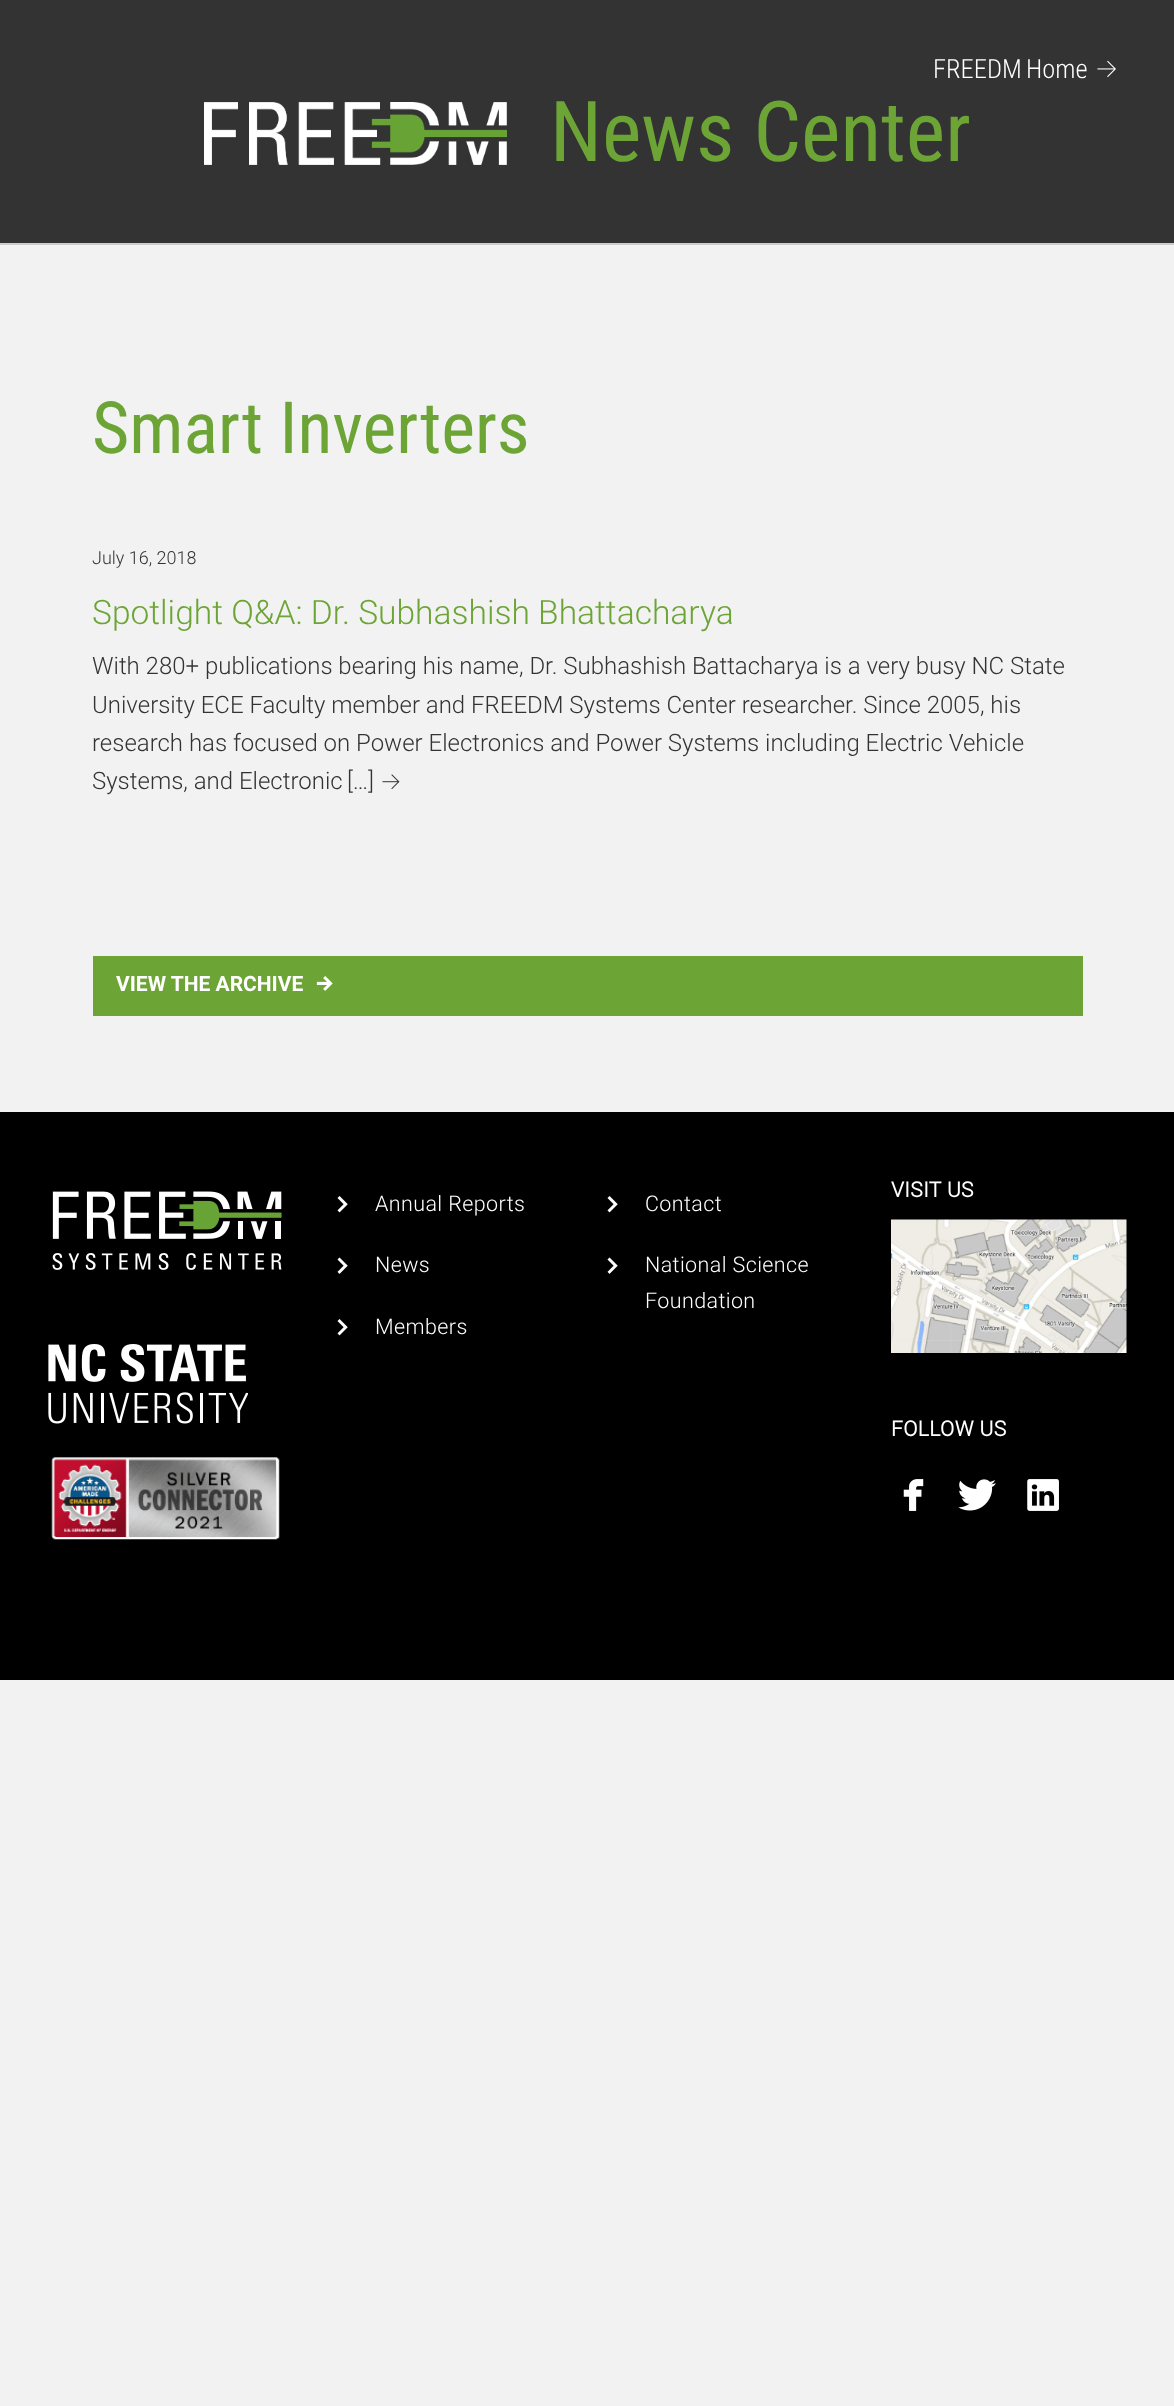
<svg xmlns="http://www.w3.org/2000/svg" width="1174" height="2406">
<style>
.a{font:300 26.5px Roboto Condensed;fill:#fff}
.b{font:84px Roboto Condensed;fill:#6ca435}
.c{font:72px Roboto Condensed;fill:#6ca435}
.d{font:300 18px Roboto;fill:#333}
.e{font:300 33.6px Roboto;fill:#6ca435}
.f{font:300 24px Roboto;fill:#333}
.g{font:bold 21px 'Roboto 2';fill:#fff}
.h{font:300 21.5px Roboto;letter-spacing:0.4px;fill:#fff}
.i{font:bold 21px Roboto;letter-spacing:0.4px;fill:#fff}
</style>
<rect width="100%" height="100%" fill="#f2f2f2"/>
<path fill="#333" d="M0 0h1174v243H0z"/>
<image href="1.png" x="1097" y="60" width="19" height="17"/>
<image href="2.png" x="204" y="102" width="303" height="63"/>
<path fill="#ccc" d="M0 243h1174v2H0z"/>
<image href="3.png" x="382" y="774" width="18" height="15"/>
<path fill="#6ca435" d="M93 956h990v60H93z"/>
<image href="4.png" x="316" y="976" width="17" height="15"/>
<path fill="#000" d="M0 1112h1174v568H0z"/>
<image href="5.png" x="52" y="1191" width="230" height="79"/>
<image href="6.png" x="48" y="1344" width="200" height="80"/>
<image href="7.png" x="51" y="1457" width="229" height="83"/>
<image href="8.png" x="337" y="1196" width="11" height="17"/>
<image href="9.png" x="337" y="1257" width="11" height="17"/>
<image href="8.png" x="337" y="1319" width="11" height="17"/>
<image href="8.png" x="607" y="1196" width="11" height="17"/>
<image href="9.png" x="607" y="1257" width="11" height="17"/>
<image href="10.png" x="891" y="1219" width="236" height="134"/>
<image href="11.png" x="903" y="1479" width="21" height="32"/>
<image href="12.png" x="958" y="1479" width="38" height="32"/>
<image href="13.png" x="1027" y="1479" width="32" height="32"/>
<text class="a" x="933" y="78">FREEDM</text>
<text class="a" x="1026" y="78">Home</text>
<text class="b" x="550" y="161">News Center</text>
<text class="c" x="92" y="453">Smart Inverters</text>
<text class="d" x="92" y="564">July 16, 2018</text>
<text class="e" x="92" y="624">Spotlight Q&amp;A: Dr. Subhashish Bhattacharya</text>
<text class="f" x="92" y="674">With 280+ publications bearing his name, Dr. Subhashish Battacharya is a very busy NC State</text>
<text class="f" x="92" y="713">University ECE Faculty member and FREEDM Systems Center researcher. Since 2005, his</text>
<text class="f" x="92" y="751">research has focused on Power Electronics and Power Systems including Electric Vehicle</text>
<text class="f" x="92" y="789">Systems, and Electronic</text>
<text class="f" x="347" y="789">[…]</text>
<text class="g" x="116" y="991">VIEW THE ARCHIVE</text>
<text class="h" x="375" y="1211">Annual Reports</text>
<text class="h" x="375" y="1272">News</text>
<text class="h" x="375" y="1334">Members</text>
<text class="h" x="645" y="1211">Contact</text>
<text class="h" x="645" y="1272">National Science</text>
<text class="h" x="645" y="1308">Foundation</text>
<text class="i" x="891" y="1197">VISIT US</text>
<text class="i" x="891" y="1436">FOLLOW US</text>
</svg>
